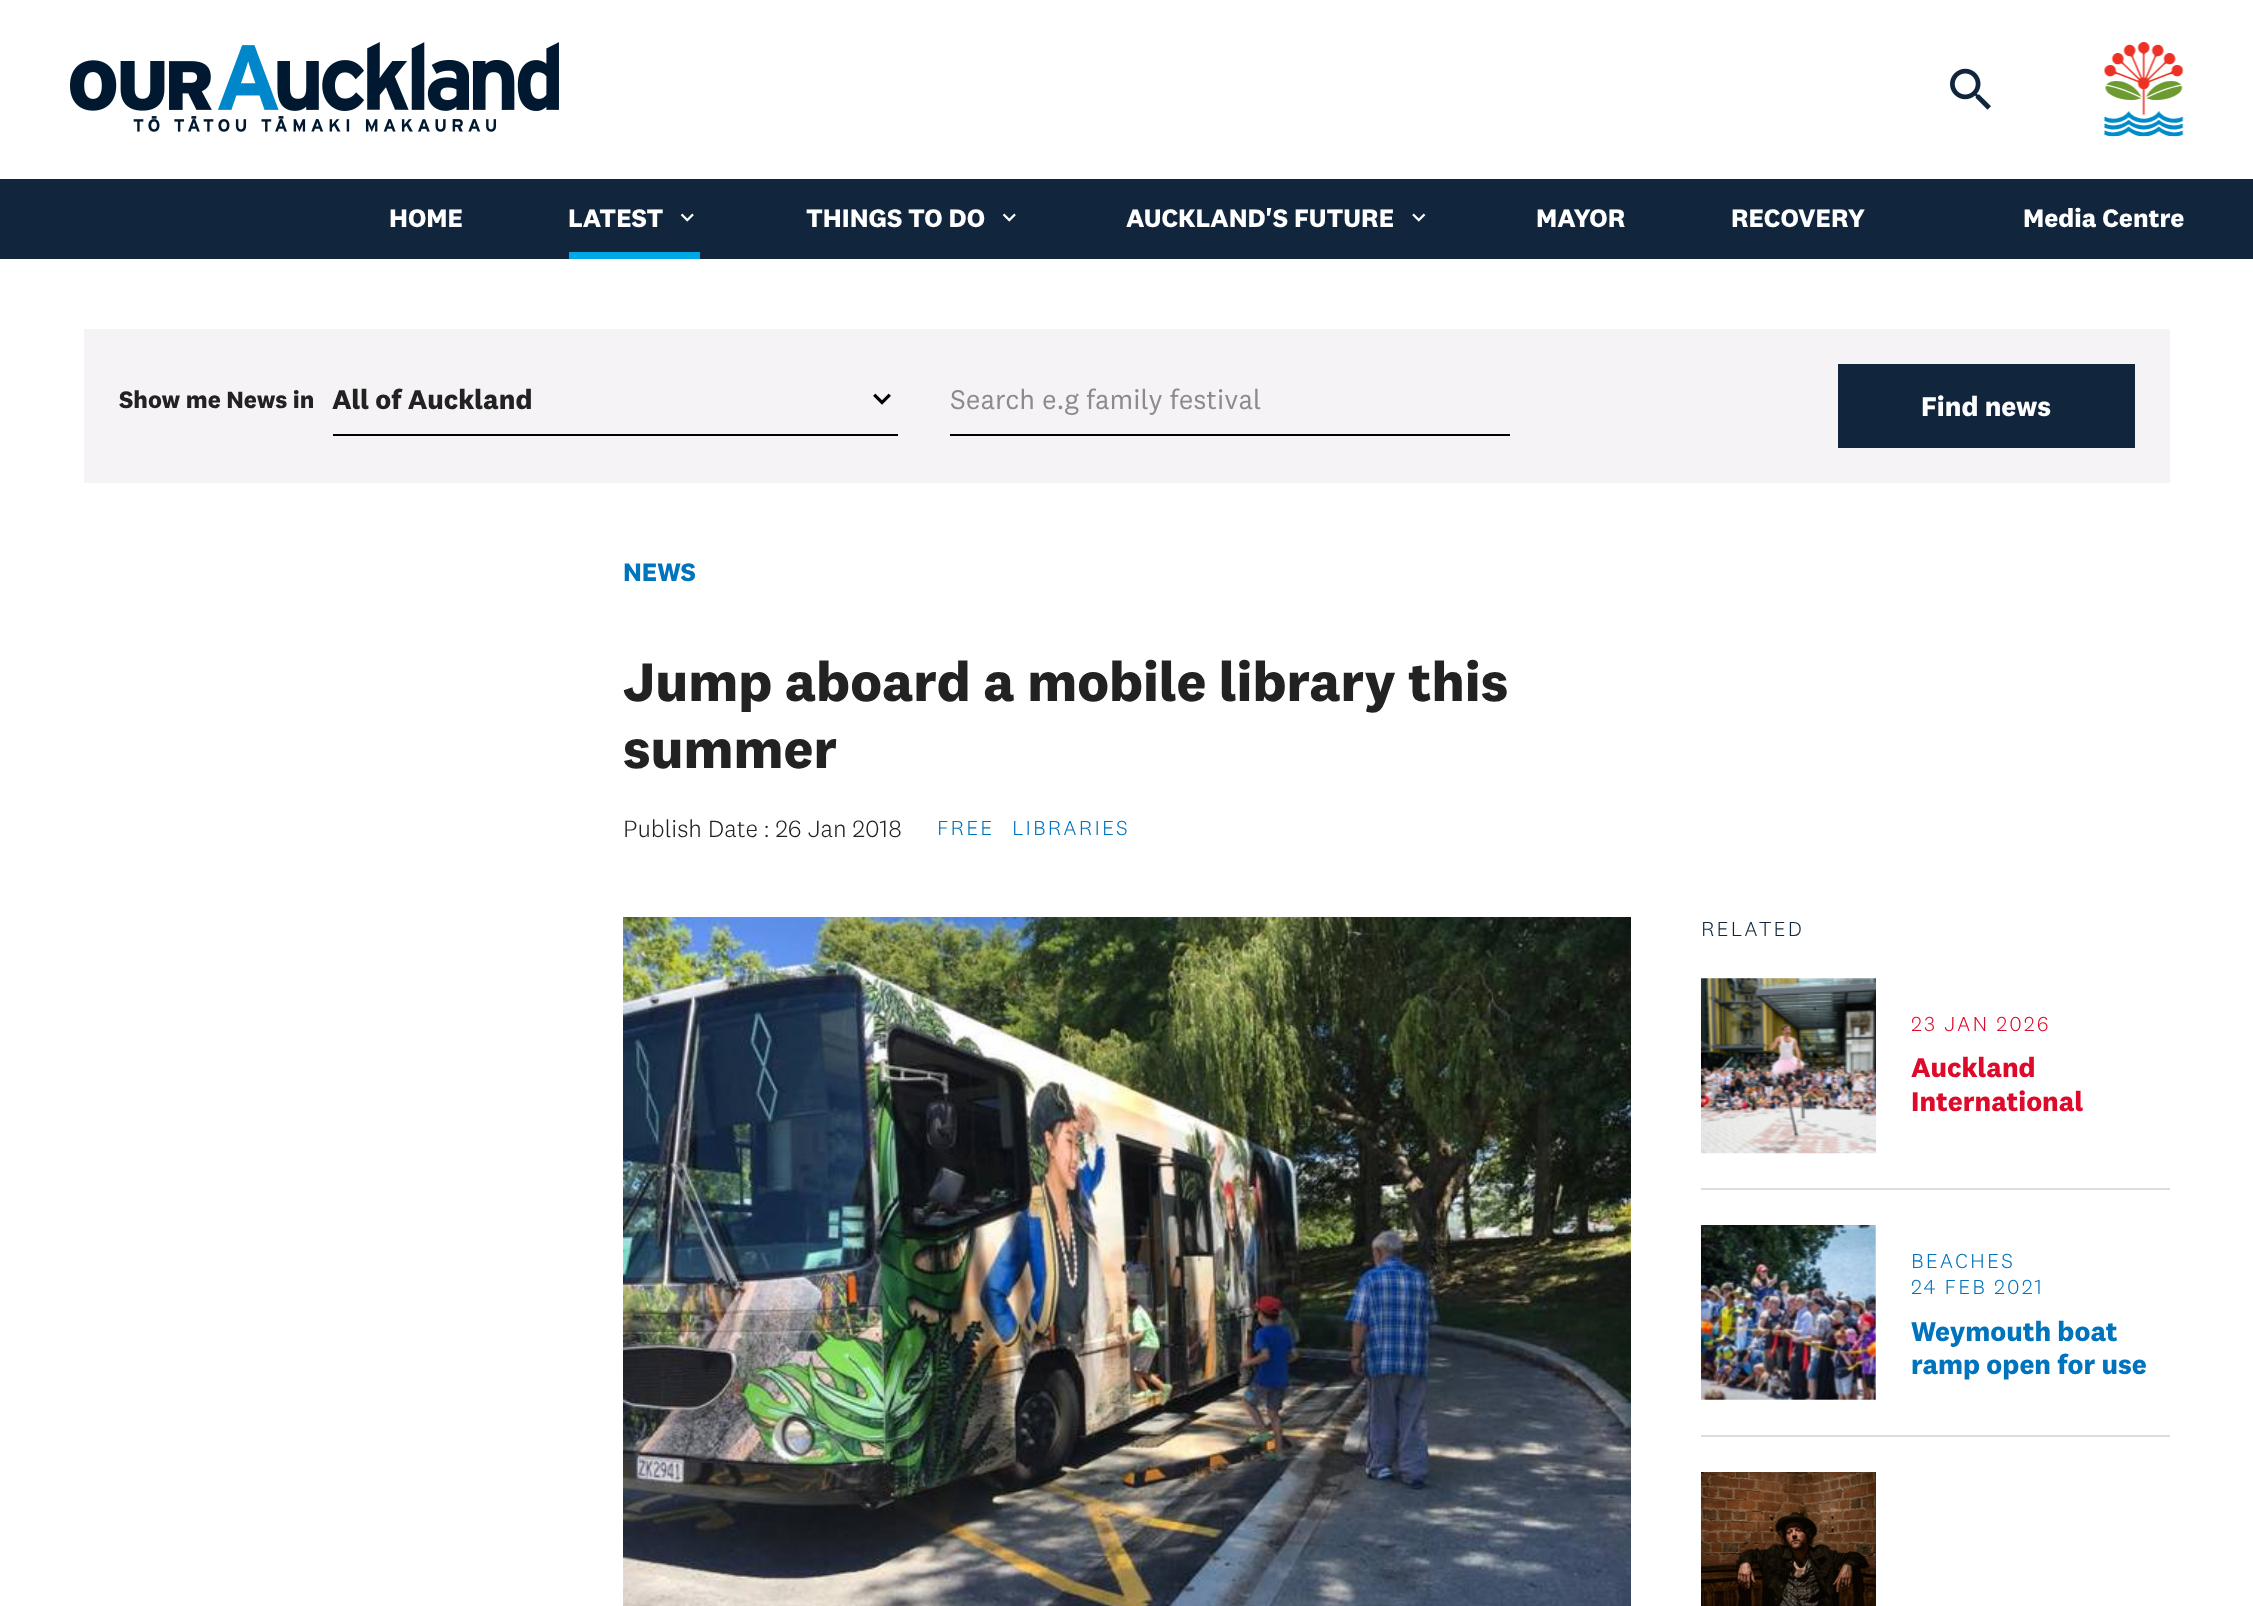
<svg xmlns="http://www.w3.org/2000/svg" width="2253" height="1606">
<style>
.a{font:bold 26.25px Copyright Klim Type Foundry;fill:#fff}
.b{font:bold 24.5px Copyright Klim Type Foundry;fill:#222}
.c{font:bold 28px Copyright Klim Type Foundry;fill:#222}
.d{font:28px Copyright Klim Type Foundry;fill:#8c8b8c}
.e{font:bold 28px Copyright Klim Type Foundry;fill:#fff}
.f{font:bold 26.25px Copyright Klim Type Foundry;fill:#0073bd}
.g{font:bold 56px Copyright Klim Type Foundry;fill:#222}
.h{font:300 24.5px 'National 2';fill:#222}
.i{font:300 21px 'National 2';letter-spacing:2.1px;fill:#0073bd}
.j{font:300 21px 'National 2';letter-spacing:2.1px;fill:#11263d}
.k{font:300 21px 'National 2';letter-spacing:2.1px;fill:#de0a2b}
.l{font:bold 28px Copyright Klim Type Foundry;fill:#de0a2b}
.m{font:bold 28px Copyright Klim Type Foundry;fill:#0073bd}
</style>
<rect width="100%" height="100%" fill="#fff"/>
<image href="1.png" x="70" y="42" width="489" height="90"/>
<image href="2.png" x="1950" y="68" width="41" height="42"/>
<image href="3.png" x="2104" y="42" width="80" height="95"/>
<path fill="#11263d" d="M0 179h2253v80H0z"/>
<image href="4.png" x="680" y="213" width="14" height="9"/>
<path fill="#00a7e5" d="M569 252h131v7H569z"/>
<image href="4.png" x="1002" y="213" width="14" height="9"/>
<image href="5.png" x="1412" y="213" width="14" height="9"/>
<path fill="#f5f3f5" d="M84 329h2086v154H84z"/>
<image href="6.png" x="873" y="393" width="18" height="12"/>
<path fill="#000" d="M333 434h565v2H333z"/>
<path fill="#000" d="M950 434h560v2H950z"/>
<path fill="#11263d" d="M1838 364h297v84H1838z"/>
<image href="7.png" x="623" y="917" width="1008" height="689"/>
<path fill="#ddd" d="M1701 1188h469v2H1701z"/>
<image href="8.png" x="1701" y="978" width="175" height="176"/>
<path fill="#ddd" d="M1701 1435h469v2H1701z"/>
<image href="9.png" x="1701" y="1225" width="175" height="175"/>
<image href="10.png" x="1701" y="1472" width="175" height="134"/>
<text class="a" x="389" y="227">HOME</text>
<text class="a" x="568" y="227">LATEST</text>
<text class="a" x="806" y="227">THINGS TO DO</text>
<text class="a" x="1126" y="227">AUCKLAND'S FUTURE</text>
<text class="a" x="1536" y="227">MAYOR</text>
<text class="a" x="1731" y="227">RECOVERY</text>
<text class="a" x="2023" y="227">Media Centre</text>
<text class="b" x="119" y="408">Show me News in</text>
<text class="c" x="332" y="409">All of Auckland</text>
<text class="d" x="950" y="409">Search e.g family festival</text>
<text class="e" x="1921" y="416">Find news</text>
<text class="f" x="623" y="581">NEWS</text>
<text class="g" x="623" y="701">Jump aboard a mobile library this</text>
<text class="g" x="623" y="768">summer</text>
<text class="h" x="623" y="837">Publish Date : 26 Jan 2018</text>
<text class="i" x="937" y="835">FREE</text>
<text class="i" x="1012" y="835">LIBRARIES</text>
<text class="j" x="1701" y="936">RELATED</text>
<text class="k" x="1911" y="1031">23 JAN 2026</text>
<text class="l" x="1911" y="1077">Auckland</text>
<text class="l" x="1911" y="1111">International</text>
<text class="i" x="1911" y="1268">BEACHES</text>
<text class="i" x="1911" y="1294">24 FEB 2021</text>
<text class="m" x="1911" y="1341">Weymouth boat</text>
<text class="m" x="1911" y="1374">ramp open for use</text>
</svg>
